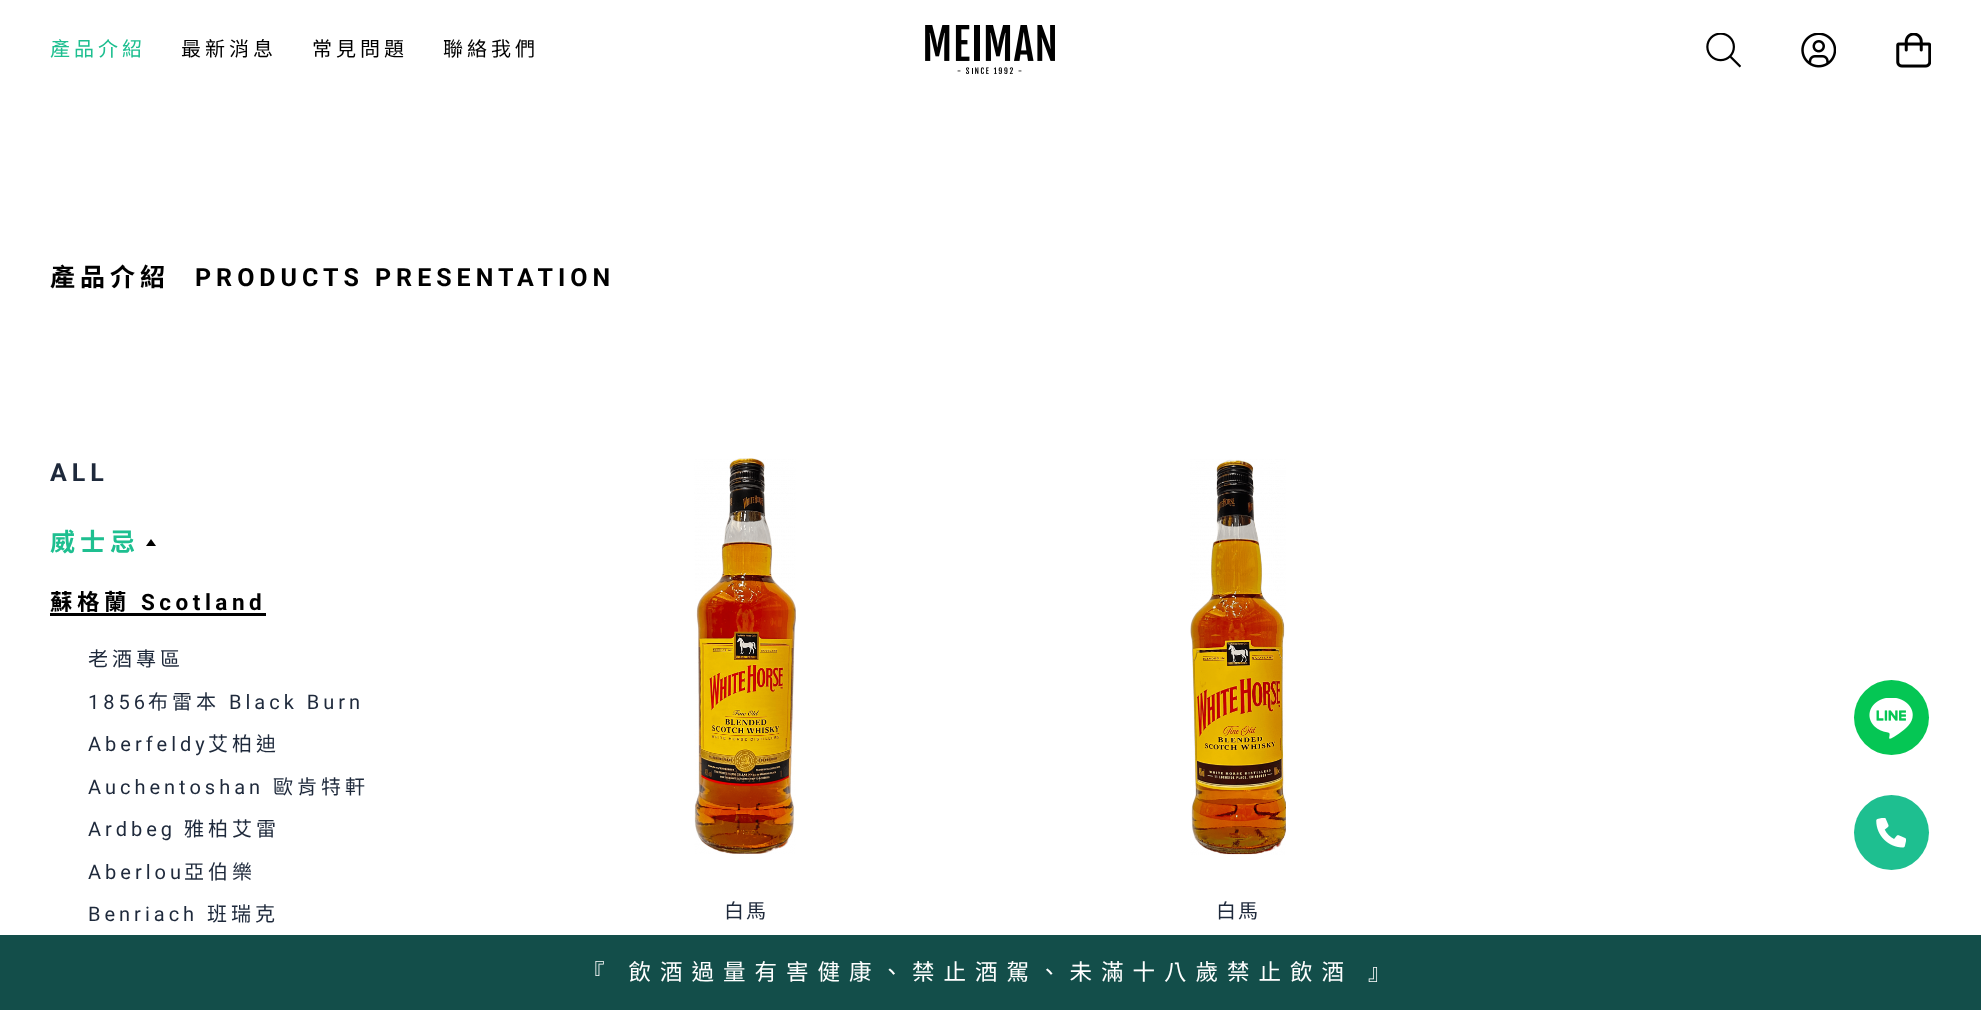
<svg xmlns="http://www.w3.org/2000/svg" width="1981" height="1010">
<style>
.a{font:20px Noto Sans TC;letter-spacing:4px;fill:#1ebf90}
.b{font:20px Noto Sans TC;letter-spacing:4px;fill:#000}
.c{font:bold 25px Noto Sans TC;letter-spacing:5px;fill:#000}
.d{font:bold 25px Roboto;letter-spacing:5px;fill:#000}
.e{font:bold 25px Roboto;letter-spacing:5px;fill:#1e293b}
.f{font:bold 25px Noto Sans TC;letter-spacing:5px;fill:#1ebf90}
.g{font:bold 22.5px Noto Sans TC;letter-spacing:4.5px;fill:#000}
.h{font:bold 22.5px Roboto;letter-spacing:4.5px;fill:#000}
.i{font:20px Noto Sans TC;letter-spacing:4px;fill:#1e293b}
.j{font:20px Roboto;letter-spacing:4px;fill:#1e293b}
.k{font:20px Noto Sans TC;letter-spacing:2px;fill:#1e293b}
.l{font:22.5px Noto Sans TC;letter-spacing:9px;fill:#fff}
</style>
<rect width="100%" height="100%" fill="#fff"/>
<image href="1.png" x="925" y="25" width="130" height="49"/>
<image href="2.png" x="1706" y="33" width="35" height="35"/>
<image href="3.png" x="1801" y="33" width="35" height="35"/>
<image href="4.png" x="1896" y="33" width="35" height="35"/>
<path fill="#000" d="M156 546h-10l5-7z"/>
<path fill="#000" d="M50 613h216v3H50z"/>
<image href="5.png" x="694" y="458" width="102" height="396"/>
<image href="6.png" x="1190" y="459" width="96" height="396"/>
<circle fill="#05c654" cx="1891.5" cy="717.5" r="37.5"/>
<image href="7.png" x="1869" y="698" width="44" height="41"/>
<circle fill="#1ebf90" cx="1891.5" cy="832.5" r="37.5"/>
<image href="8.png" x="1876" y="818" width="30" height="30"/>
<path fill="#134e4a" d="M0 935h1981v75H0z"/>
<text class="a" x="50" y="56">產品介紹</text>
<text class="b" x="181" y="56">最新消息</text>
<text class="b" x="312" y="56">常見問題</text>
<text class="b" x="443" y="56">聯絡我們</text>
<text class="c" x="50" y="286">產品介紹</text>
<text class="d" x="195" y="286">PRODUCTS PRESENTATION</text>
<text class="e" x="50" y="481">ALL</text>
<text class="f" x="50" y="551">威士忌</text>
<text class="g" x="50" y="610">蘇格蘭</text>
<text class="h" x="141" y="610">Scotland</text>
<text class="i" x="88" y="666">老酒專區</text>
<text class="j" x="88" y="709">1856</text>
<text class="i" x="148" y="709">布雷本</text>
<text class="j" x="229" y="709">Black Burn</text>
<text class="j" x="88" y="751">Aberfeldy</text>
<text class="i" x="208" y="751">艾柏迪</text>
<text class="j" x="88" y="794">Auchentoshan</text>
<text class="i" x="273" y="794">歐肯特軒</text>
<text class="j" x="88" y="836">Ardbeg</text>
<text class="i" x="184" y="836">雅柏艾雷</text>
<text class="j" x="88" y="879">Aberlou</text>
<text class="i" x="184" y="879">亞伯樂</text>
<text class="j" x="88" y="921">Benriach</text>
<text class="i" x="207" y="921">班瑞克</text>
<text class="k" x="724" y="918">白馬</text>
<text class="k" x="1216" y="918">白馬</text>
<text class="l" x="582" y="980" word-spacing="1">『 飲酒過量有害健康、禁止酒駕、未滿十八歲禁止飲酒 』</text>
</svg>
